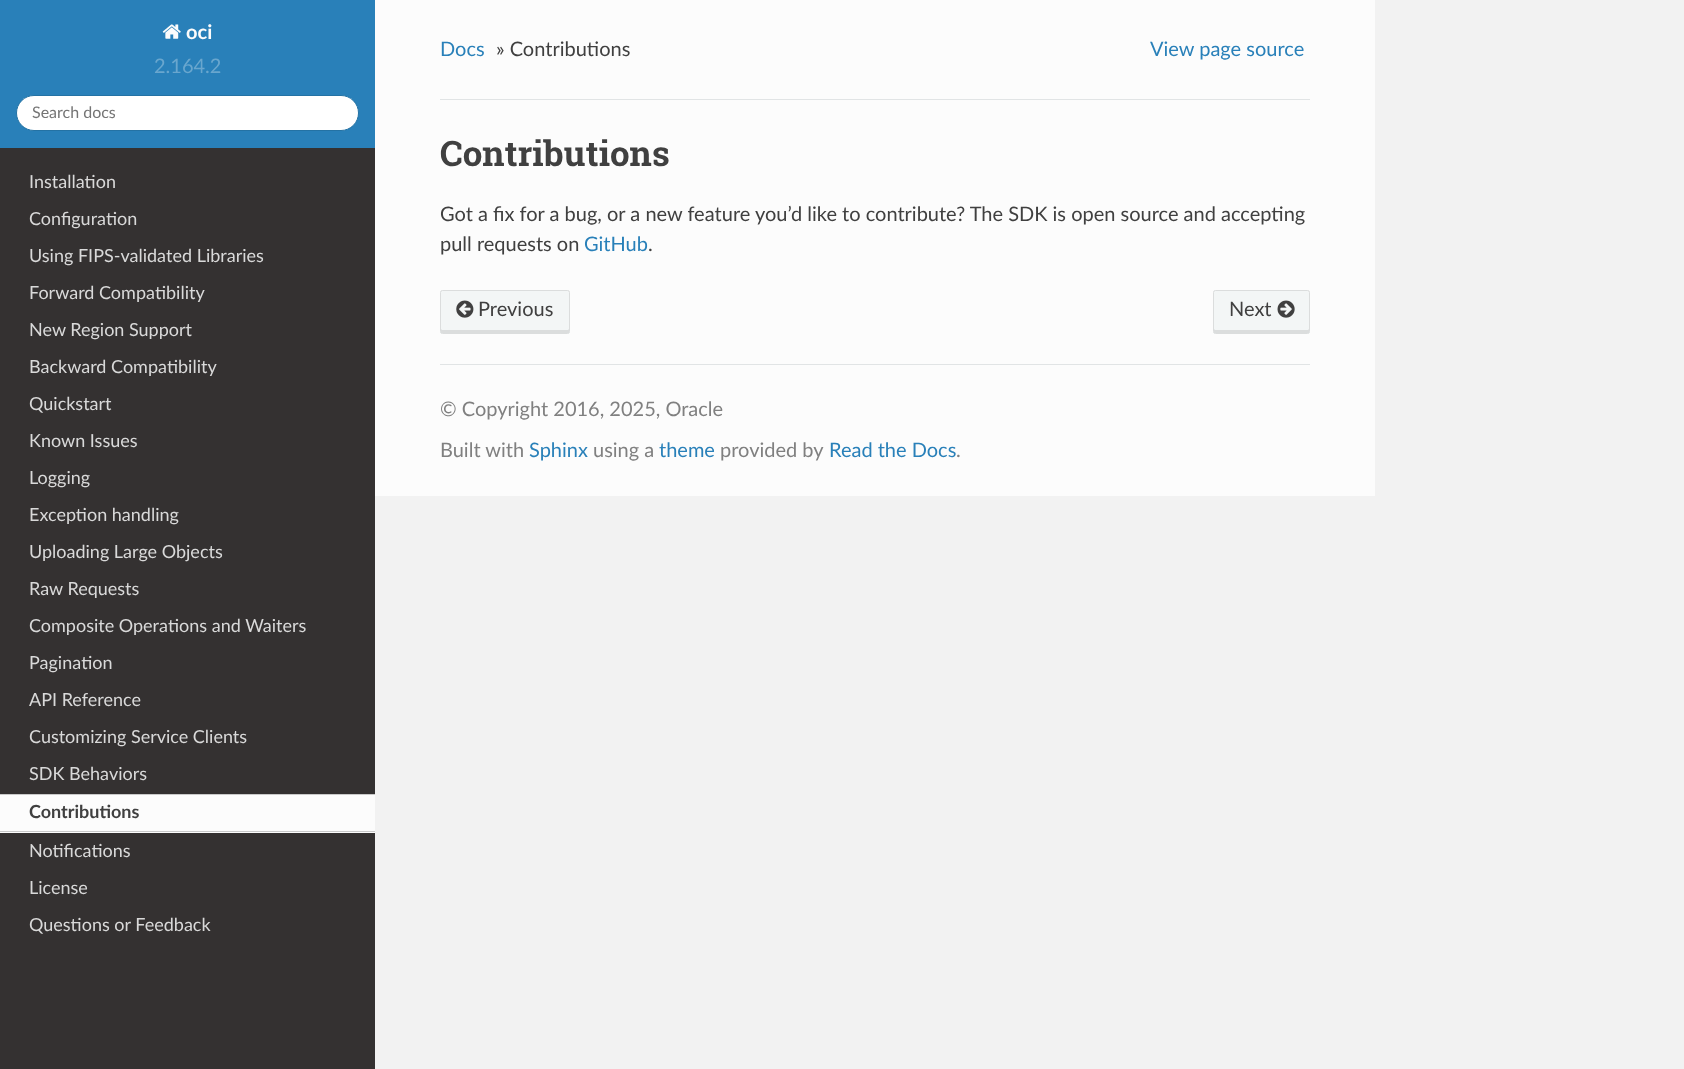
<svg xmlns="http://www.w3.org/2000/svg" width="1684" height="1069">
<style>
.a{font:bold 20px Lato;fill:#fcfcfc}
.b{font:20px Lato;fill:#69a6ce}
.c{font:16px Lato;fill:#757575}
.d{font:18px Lato;fill:#d9d9d9}
.e{font:bold 18px Lato;fill:#404040}
.f{font:20px Lato;fill:#2980b9}
.g{font:20px Lato;fill:#404040}
.h{font:bold 35px Roboto Slab;fill:#404040}
.i{font:20px Lato;fill:#808080}
</style>
<rect width="100%" height="100%" fill="#f2f2f2"/>
<path fill="#343131" d="M0 148h375v921H0z"/>
<path fill="#2980b9" d="M0 0h375v148H0z"/>
<image href="1.png" x="162" y="24" width="19" height="15"/>
<rect fill="#fff" stroke="#2472a4" x="16.5" y="95.5" width="342" height="35" rx="17.5"/>
<path fill="#fcfcfc" d="M0 795h375v38H0z"/>
<path fill="#c9c9c9" d="M0 794h375v1H0z"/>
<path fill="#c9c9c9" d="M0 831h375v1H0z"/>
<path fill="#fcfcfc" d="M375 0h1000v496H375z"/>
<path fill="#e1e4e5" d="M440 99h870v1H440z"/>
<rect fill="#f3f6f6" x="440" y="290" width="130" height="44" rx="2.5"/>
<path fill="#dbdddd" d="M441 329v3c0 1 0 1 1 1h126c1 0 1 0 1-1v-3l-1 1h-126z"/>
<rect fill="none" stroke="#dbdddd" x="440.5" y="290.5" width="129" height="43" rx="2"/>
<image href="2.png" x="456" y="300" width="18" height="18"/>
<rect fill="#f3f6f6" x="1213" y="290" width="97" height="44" rx="2.5"/>
<path fill="#dbdddd" d="M1214 329v3c0 1 0 1 1 1h93c1 0 1 0 1-1v-3l-1 1h-93z"/>
<rect fill="none" stroke="#dbdddd" x="1213.5" y="290.5" width="96" height="43" rx="2"/>
<image href="3.png" x="1277" y="300" width="18" height="18"/>
<path fill="#e1e4e5" d="M440 364h870v1H440z"/>
<text class="a" x="186" y="39">oci</text>
<text class="b" x="154" y="73">2.164.2</text>
<text class="c" x="32" y="118">Search docs</text>
<text class="d" x="29" y="188">Installation</text>
<text class="d" x="29" y="225">Configuration</text>
<text class="d" x="29" y="262">Using FIPS-validated Libraries</text>
<text class="d" x="29" y="299">Forward Compatibility</text>
<text class="d" x="29" y="336">New Region Support</text>
<text class="d" x="29" y="373">Backward Compatibility</text>
<text class="d" x="29" y="410">Quickstart</text>
<text class="d" x="29" y="447">Known Issues</text>
<text class="d" x="29" y="484">Logging</text>
<text class="d" x="29" y="521">Exception handling</text>
<text class="d" x="29" y="558">Uploading Large Objects</text>
<text class="d" x="29" y="595">Raw Requests</text>
<text class="d" x="29" y="632">Composite Operations and Waiters</text>
<text class="d" x="29" y="669">Pagination</text>
<text class="d" x="29" y="706">API Reference</text>
<text class="d" x="29" y="743">Customizing Service Clients</text>
<text class="d" x="29" y="780">SDK Behaviors</text>
<text class="e" x="29" y="818">Contributions</text>
<text class="d" x="29" y="857">Notifications</text>
<text class="d" x="29" y="894">License</text>
<text class="d" x="29" y="931">Questions or Feedback</text>
<text class="f" x="440" y="56">Docs</text>
<text class="g" x="496" y="56">» Contributions</text>
<text class="f" x="1150" y="56">View page source</text>
<text class="h" x="440" y="166">Contributions</text>
<text class="g" x="440" y="221">Got a fix for a bug, or a new feature you’d like to contribute? The SDK is open source and accepting</text>
<text class="g" x="440" y="251">pull requests on</text>
<text class="f" x="584" y="251">GitHub</text>
<text class="g" x="648" y="251">.</text>
<text class="g" x="478" y="316">Previous</text>
<text class="g" x="1229" y="316">Next</text>
<text class="i" x="440" y="416">© Copyright 2016, 2025, Oracle</text>
<text class="i" x="440" y="457">Built with</text>
<text class="f" x="529" y="457">Sphinx</text>
<text class="i" x="593" y="457">using a</text>
<text class="f" x="659" y="457">theme</text>
<text class="i" x="720" y="457">provided by</text>
<text class="f" x="829" y="457">Read the Docs</text>
<text class="i" x="956" y="457">.</text>
</svg>
